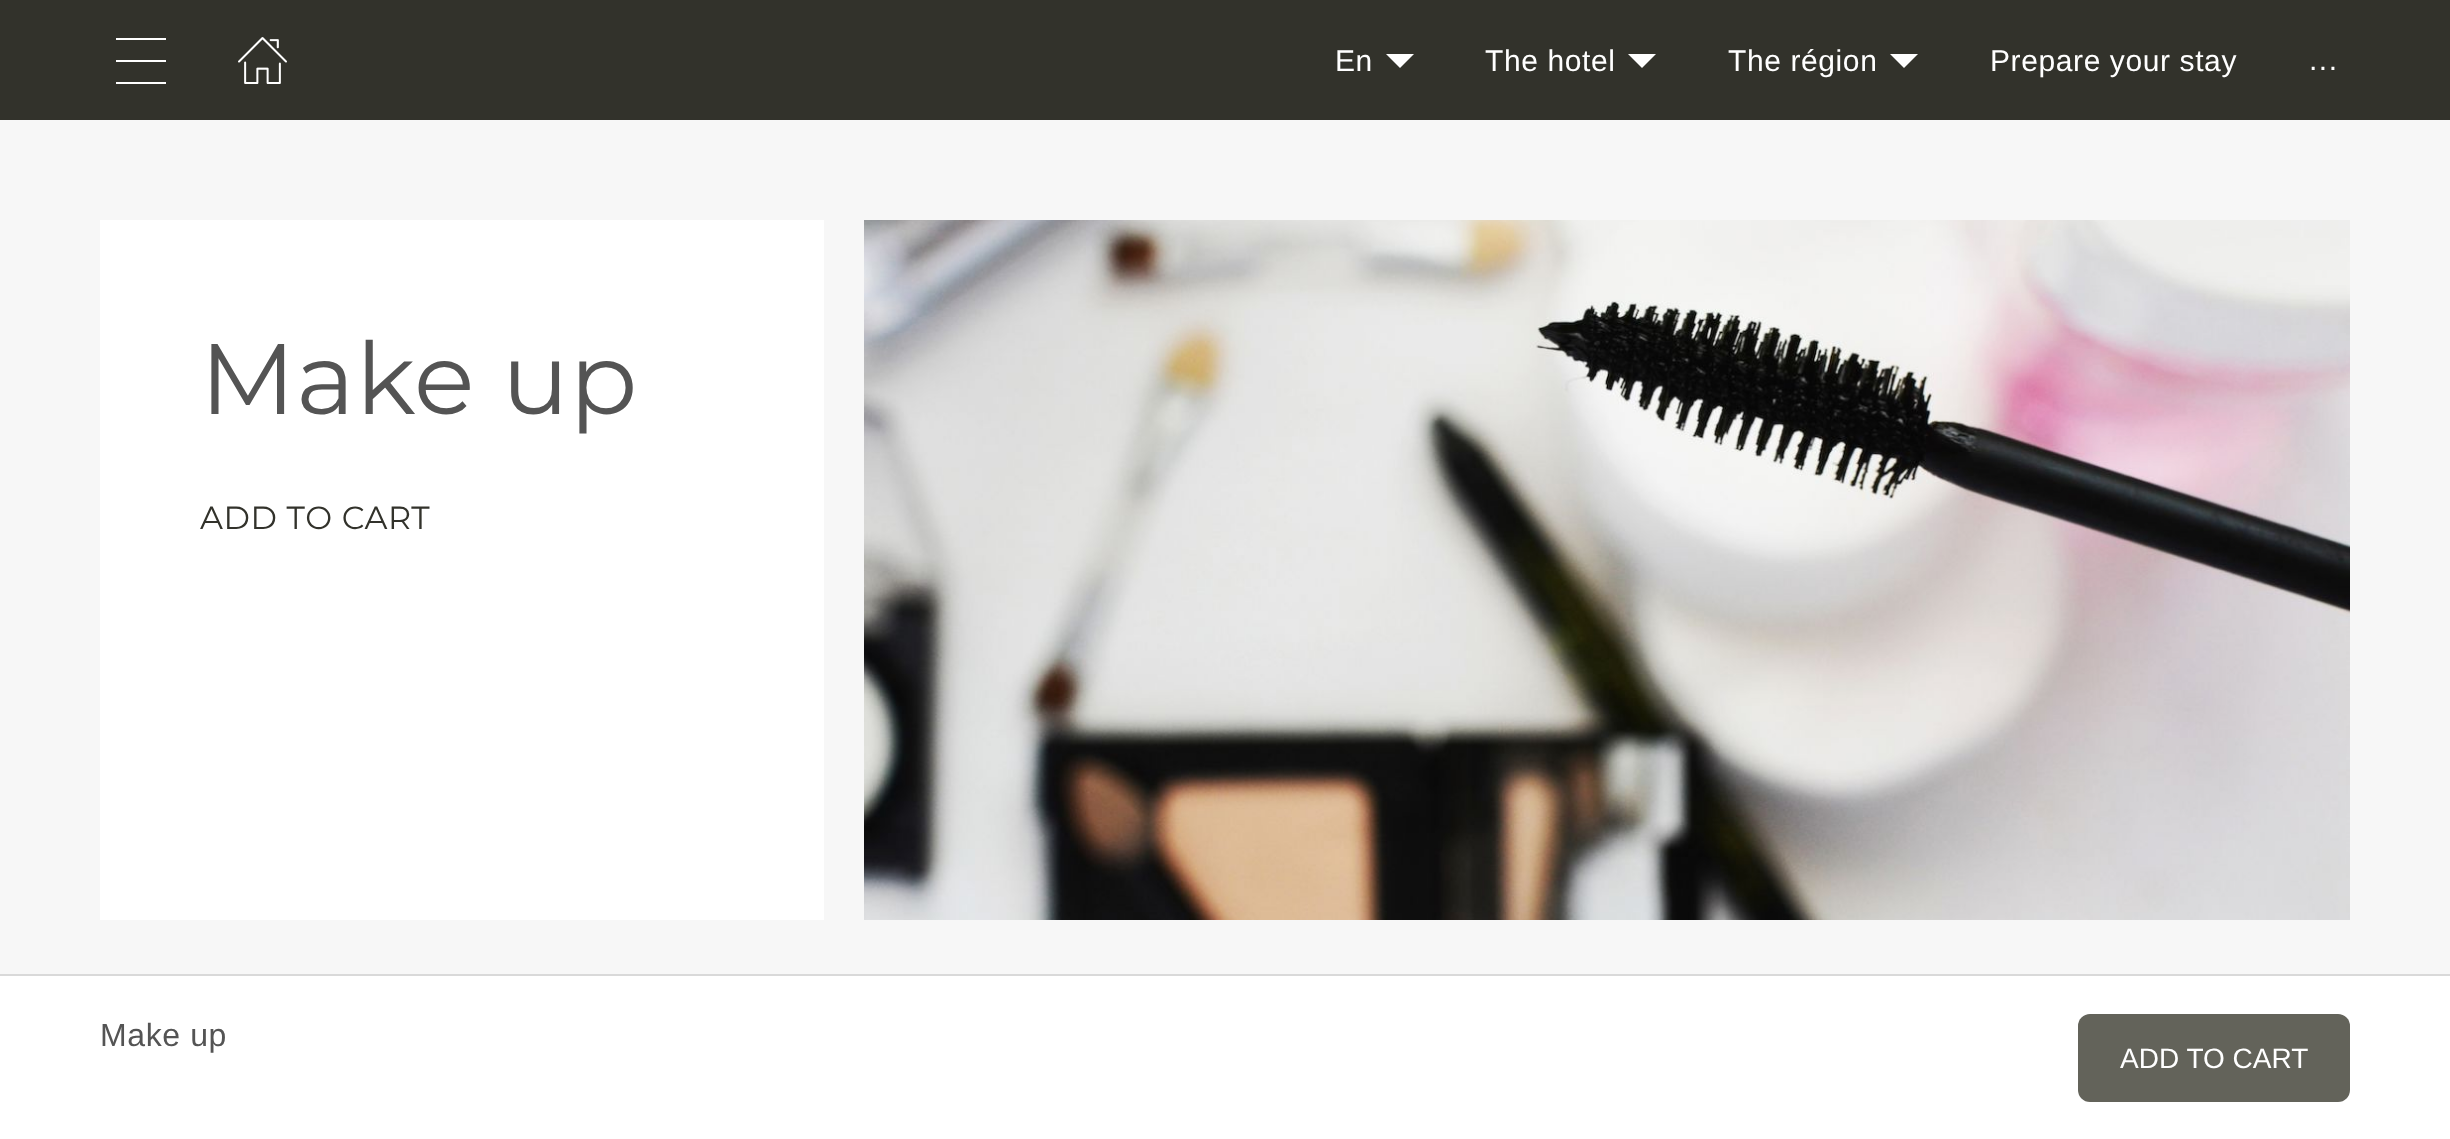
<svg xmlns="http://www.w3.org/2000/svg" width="2450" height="1139">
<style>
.a{font:30px Liberation Sans;letter-spacing:0.6px;fill:#fff}
.b{font:30px Liberation Sans;letter-spacing:1.5px;fill:#fff}
.c{font:100 100px Montserrat;letter-spacing:0.6px;fill:#545454}
.d{font:100 32px Montserrat;letter-spacing:0.6px;fill:#32322b}
.e{font:32px Liberation Sans;letter-spacing:0.6px;fill:#545454}
.f{font:28px Liberation Sans;fill:#fff}
</style>
<rect width="100%" height="100%" fill="#f7f7f7"/>
<path fill="#32322b" d="M0 0h2450v120H0z"/>
<path fill="#fff" d="M116 60h50v2H116z"/>
<path fill="#fff" d="M116 38h50v2H116z"/>
<path fill="#fff" d="M116 82h50v2H116z"/>
<image href="1.png" x="238" y="37" width="49" height="47"/>
<path fill="#fff" d="M1386 54h28l-14 14z"/>
<path fill="#fff" d="M1628 54h28l-14 14z"/>
<path fill="#fff" d="M1890 54h28l-14 14z"/>
<path fill="#fff" d="M100 220h724v700H100z"/>
<image href="2.png" x="864" y="220" width="1486" height="700"/>
<path fill="#fff" d="M0 976h2450v163H0z"/>
<path fill="#d9d9d9" d="M0 974h2450v2H0z"/>
<rect fill="#63635a" x="2078" y="1014" width="272" height="88" rx="12"/>
<text class="a" x="1335" y="71">En</text>
<text class="a" x="1485" y="71">The hotel</text>
<text class="a" x="1728" y="71">The région</text>
<text class="a" x="1990" y="71">Prepare your stay</text>
<text class="b" x="2309" y="70">...</text>
<text class="c" x="200" y="414">Make up</text>
<text class="d" x="200" y="529">ADD TO CART</text>
<text class="e" x="100" y="1046">Make up</text>
<text class="f" x="2120" y="1068">ADD TO CART</text>
</svg>
